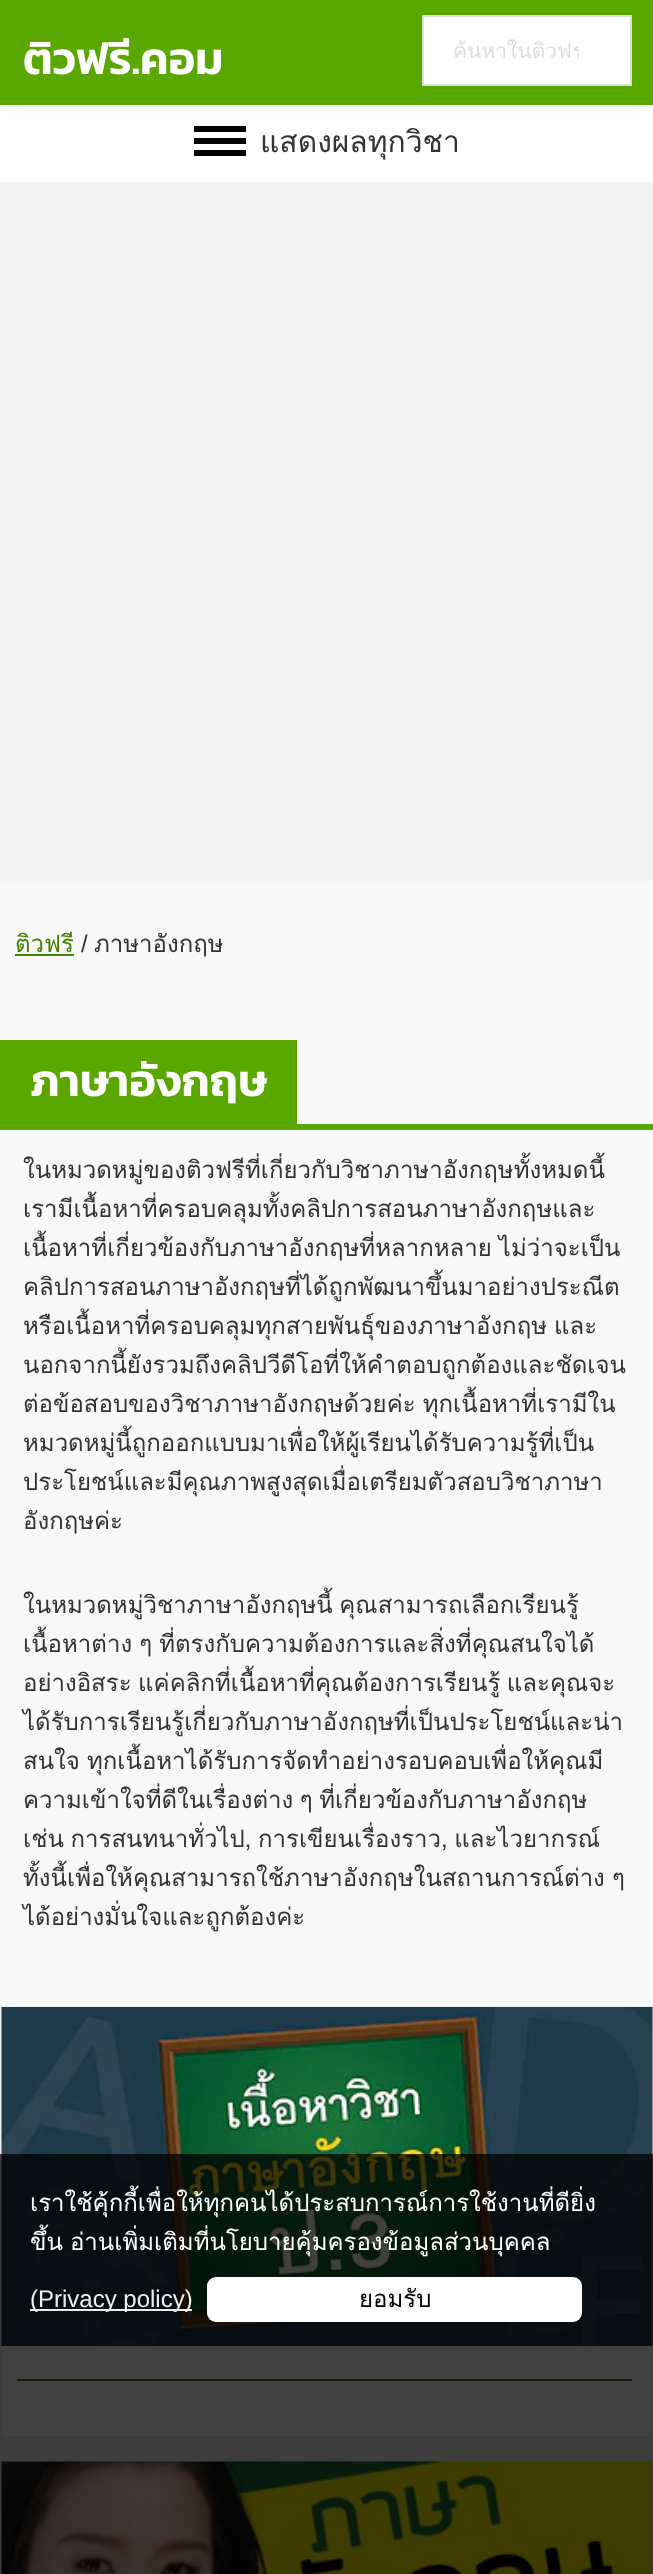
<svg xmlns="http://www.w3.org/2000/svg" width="653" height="2574">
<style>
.a{font:600 45px Kanit;fill:#fff}
.b{font:21px Loma;fill:#ddd}
.c{font:30px Loma;fill:#333}
.d{font:24px Loma;fill:#448100}
.e{font:24px Liberation Sans;fill:#333}
.f{font:24px Loma;fill:#333}
.g{font:24px Loma;fill:#fff}
.h{font:24px Liberation Sans;fill:#eee}
.i{font:24px Loma;fill:#000}
</style>
<defs>
<clipPath id="clip1"><path d="M453 35h126v33H453z"/></clipPath>
</defs>
<rect width="100%" height="100%" fill="#f8f8f8"/>
<path fill="#fff" d="M0 105h653v77H0z"/>
<path fill="#000" d="M194 126h52v6H194z"/>
<path fill="#000" d="M194 138h52v6H194z"/>
<path fill="#000" d="M194 150h52v6H194z"/>
<path fill="#0000000d" filter="blur(15px)" d="M0 0h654v105H0z"/>
<path fill="#5aa700" d="M0 0h653v105H0z"/>
<path fill="#fff" stroke="#ddd" stroke-width="2" d="M423 16h208v69H423z"/>
<path fill="#f4f4f4" d="M0 182h653v699H0z"/>
<path fill="#428601" d="M15 954h59v2H15z"/>
<path fill="#5aa700" d="M0 1124h653v6H0z"/>
<path fill="#5aa700" d="M0 1040h297v84H0z"/>
<path fill="none" stroke="#eee" stroke-width="2" d="M1 2007h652v430H1z"/>
<image href="1.png" x="1" y="2007" width="652" height="339"/>
<path fill="#fff" d="M2 2346h651v90H2z"/>
<path fill="#428601" d="M17 2379h615v2H17z"/>
<path fill="none" stroke="#eee" stroke-width="2" d="M1 2461h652v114H1z"/>
<image href="2.png" x="1" y="2461" width="652" height="113"/>
<path fill="#000000bf" d="M0 2154h653v420H0z"/>
<path fill="#eee" d="M30 2309h162v2H30z"/>
<rect fill="#fff" x="207" y="2277" width="375" height="45" rx="9"/>
<text class="a" x="23" y="74">ติวฟรี.คอม</text>
<g clip-path="url(#clip1)">
<text class="b" x="453" y="58">ค้นหาในติวฟร</text>
</g>
<text class="c" x="260" y="152">แสดงผลทุกวิชา</text>
<text class="d" x="15" y="952">ติวฟรี</text>
<text class="e" x="81" y="952">/</text>
<text class="f" x="94" y="952">ภาษาอังกฤษ</text>
<text class="a" x="30" y="1096">ภาษาอังกฤษ</text>
<text class="f" x="23" y="1178">ในหมวดหมู่ของติวฟรีที่เกี่ยวกับวิชาภาษาอังกฤษทั้งหมดนี้</text>
<text class="f" x="23" y="1217">เรามีเนื้อหาที่ครอบคลุมทั้งคลิปการสอนภาษาอังกฤษและ</text>
<text class="f" x="23" y="1256" word-spacing="-1">เนื้อหาที่เกี่ยวข้องกับภาษาอังกฤษที่หลากหลาย ไม่ว่าจะเป็น</text>
<text class="f" x="23" y="1295">คลิปการสอนภาษาอังกฤษที่ได้ถูกพัฒนาขึ้นมาอย่างประณีต</text>
<text class="f" x="23" y="1334" word-spacing="-1">หรือเนื้อหาที่ครอบคลุมทุกสายพันธุ์ของภาษาอังกฤษ และ</text>
<text class="f" x="23" y="1373">นอกจากนี้ยังรวมถึงคลิปวีดีโอที่ให้คำตอบถูกต้องและชัดเจน</text>
<text class="f" x="23" y="1412" word-spacing="-1">ต่อข้อสอบของวิชาภาษาอังกฤษด้วยค่ะ ทุกเนื้อหาที่เรามีใน</text>
<text class="f" x="23" y="1451">หมวดหมู่นี้ถูกออกแบบมาเพื่อให้ผู้เรียนได้รับความรู้ที่เป็น</text>
<text class="f" x="23" y="1490">ประโยชน์และมีคุณภาพสูงสุดเมื่อเตรียมตัวสอบวิชาภาษา</text>
<text class="f" x="23" y="1529">อังกฤษค่ะ</text>
<text class="f" x="23" y="1613" word-spacing="-1.5">ในหมวดหมู่วิชาภาษาอังกฤษนี้ คุณสามารถเลือกเรียนรู้</text>
<text class="f" x="23" y="1652" word-spacing="-1">เนื้อหาต่าง ๆ ที่ตรงกับความต้องการและสิ่งที่คุณสนใจได้</text>
<text class="f" x="23" y="1691" word-spacing="-1.5">อย่างอิสระ แค่คลิกที่เนื้อหาที่คุณต้องการเรียนรู้ และคุณจะ</text>
<text class="f" x="23" y="1730">ได้รับการเรียนรู้เกี่ยวกับภาษาอังกฤษที่เป็นประโยชน์และน่า</text>
<text class="f" x="23" y="1769" word-spacing="-1">สนใจ ทุกเนื้อหาได้รับการจัดทำอย่างรอบคอบเพื่อให้คุณมี</text>
<text class="f" x="23" y="1808" word-spacing="-1.5">ความเข้าใจที่ดีในเรื่องต่าง ๆ ที่เกี่ยวข้องกับภาษาอังกฤษ</text>
<text class="f" x="23" y="1847" word-spacing="-1.5">เช่น การสนทนาทั่วไป, การเขียนเรื่องราว, และไวยากรณ์</text>
<text class="f" x="23" y="1886" word-spacing="-1">ทั้งนี้เพื่อให้คุณสามารถใช้ภาษาอังกฤษในสถานการณ์ต่าง ๆ</text>
<text class="f" x="23" y="1925">ได้อย่างมั่นใจและถูกต้องค่ะ</text>
<text class="g" x="30" y="2211">เราใช้คุ้กกี้เพื่อให้ทุกคนได้ประสบการณ์การใช้งานที่ดียิ่ง</text>
<text class="g" x="30" y="2250" word-spacing="-1">ขึ้น อ่านเพิ่มเติมที่นโยบายคุ้มครองข้อมูลส่วนบุคคล</text>
<text class="h" x="30" y="2307">(Privacy policy)</text>
<text class="i" x="359" y="2307">ยอมรับ</text>
</svg>
